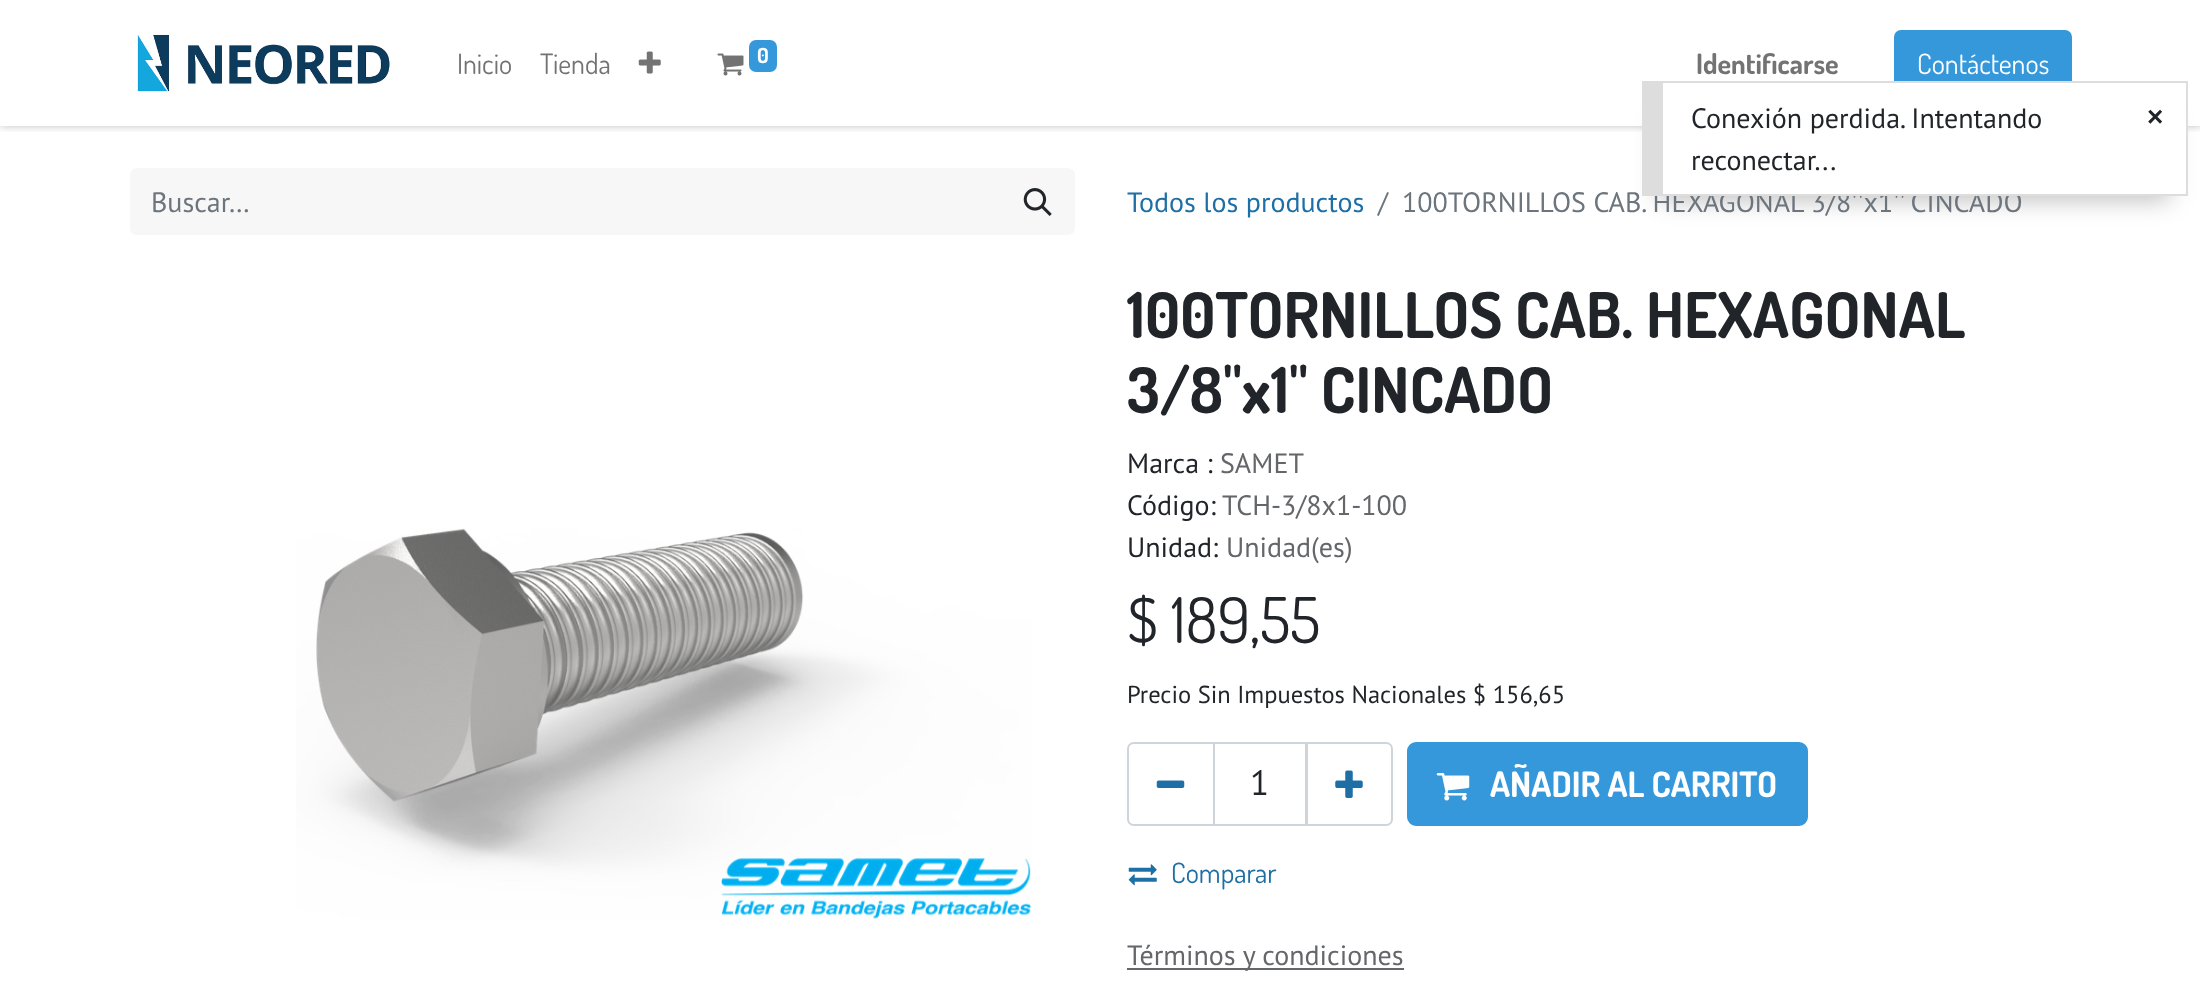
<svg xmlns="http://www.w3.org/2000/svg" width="2200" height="994">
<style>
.a{font:28px Dosis;fill:#737373}
.b{font:bold 21px Dosis;fill:#fff}
.c{font:bold 28px Dosis;fill:#737373}
.d{font:28px Dosis;fill:#fff}
.e{font:28px PT Sans;fill:#6c757d}
.f{font:28px PT Sans;fill:#1d6fa5}
.g{font:bold 63px Dosis;fill:#212529}
.h{font:28px PT Sans;fill:#212529}
.i{font:28px PT Sans;fill:#646669}
.j{font:63px Dosis;fill:#212529}
.k{font:24.5px PT Sans;fill:#212529}
.l{font:35px PT Sans;fill:#212529}
.m{font:bold 35px Dosis;fill:#fff}
.n{font:28px Dosis;fill:#1d6fa5}
.o{font:bold 28px Liberation Sans;fill:#212529}
</style>
<defs>
<clipPath id="clip1"><path d="M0 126h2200v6H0z"/></clipPath>
</defs>
<rect width="100%" height="100%" fill="#fff"/>
<g clip-path="url(#clip1)">
<path fill="#00000040" filter="blur(4.5px)" d="M0 0h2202v126H0z"/>
</g>
<image href="1.png" x="137" y="34" width="253" height="58"/>
<image href="2.png" x="638" y="51" width="23" height="23"/>
<image href="3.png" x="717" y="53" width="27" height="23"/>
<rect fill="#3498db" x="749" y="40" width="28" height="32" rx="7"/>
<rect fill="#3498db" stroke="#3498db" stroke-width="2" x="1895" y="31" width="176" height="64" rx="6"/>
<path fill="#f7f7f7" d="M137 168h866v67h-866c-4 0-7-3-7-7v-53c0-4 3-7 7-7z"/>
<path fill="#f7f7f7" d="M1001 168h67c4 0 7 3 7 7v53c0 4-3 7-7 7h-67z"/>
<image href="4.png" x="1023" y="188" width="29" height="28"/>
<image href="5.png" x="296" y="528" width="736" height="391"/>
<path fill="none" stroke="#ced4da" stroke-width="2" d="M1214 743h92v82H1214z"/>
<path fill="none" stroke="#ced4da" stroke-width="2" d="M1134 743h80v82h-80c-3.5 0-6-2.5-6-6v-70c0-3.5 2.5-6 6-6z"/>
<image href="6.png" x="1156" y="780" width="29" height="8"/>
<path fill="none" stroke="#ced4da" stroke-width="2" d="M1307 743h79c3.5 0 6 2.5 6 6v70c0 3.5-2.5 6-6 6h-79z"/>
<image href="7.png" x="1335" y="770" width="28" height="28"/>
<rect fill="#3498db" stroke="#3498db" stroke-width="2" x="1408" y="743" width="399" height="82" rx="8"/>
<image href="8.png" x="1436" y="773" width="34" height="28"/>
<image href="9.png" x="1128" y="864" width="29" height="22"/>
<path fill="#646669" d="M1127 968h277v2H1127z"/>
<path fill="#00000040" filter="blur(12px)" d="M1659 119h511v81H1659z"/>
<path fill="#ddd" d="M1663 81h525v2H1663z"/>
<path fill="#ddd" d="M2186 81h2v115H2186z"/>
<text class="a" x="457" y="74">Inicio</text>
<text class="a" x="540" y="74">Tienda</text>
<text class="b" x="757" y="63">0</text>
<text class="c" x="1696" y="74">Identificarse</text>
<text class="d" x="1917" y="74">Contáctenos</text>
<text class="e" x="151" y="212">Buscar…</text>
<text class="f" x="1127" y="212">Todos los productos</text>
<text class="e" x="1378" y="212">/</text>
<text class="e" x="1402" y="212">100TORNILLOS CAB. HEXAGONAL 3/8''x1'' CINCADO</text>
<text class="g" x="1127" y="338">100TORNILLOS CAB. HEXAGONAL</text>
<text class="g" x="1127" y="413">3/8''x1'' CINCADO</text>
<text class="h" x="1127" y="473">Marca :</text>
<text class="i" x="1220" y="473">SAMET</text>
<text class="h" x="1127" y="515">Código:</text>
<text class="i" x="1222" y="515">TCH-3/8x1-100</text>
<text class="h" x="1127" y="557">Unidad:</text>
<text class="i" x="1226" y="557">Unidad(es)</text>
<text class="j" x="1127" y="643">$ 189,55</text>
<text class="k" x="1127" y="703">Precio Sin Impuestos Nacionales $ 156,65</text>
<text class="l" x="1250" y="795">1</text>
<text class="m" x="1490" y="797">AÑADIR AL CARRITO</text>
<text class="n" x="1171" y="883">Comparar</text>
<text class="i" x="1127" y="965">Términos y condiciones</text>
<path fill="#fff" d="M1663 83h523v111H1663z"/>
<path fill="#ddd" d="M1663 194h525v2H1663z"/>
<path fill="#ddd" d="M1642 81h21v115H1642z"/>
<text class="h" x="1691" y="128">Conexión perdida. Intentando</text>
<text class="h" x="1691" y="170">reconectar...</text>
<text class="o" x="2147" y="126">×</text>
</svg>
